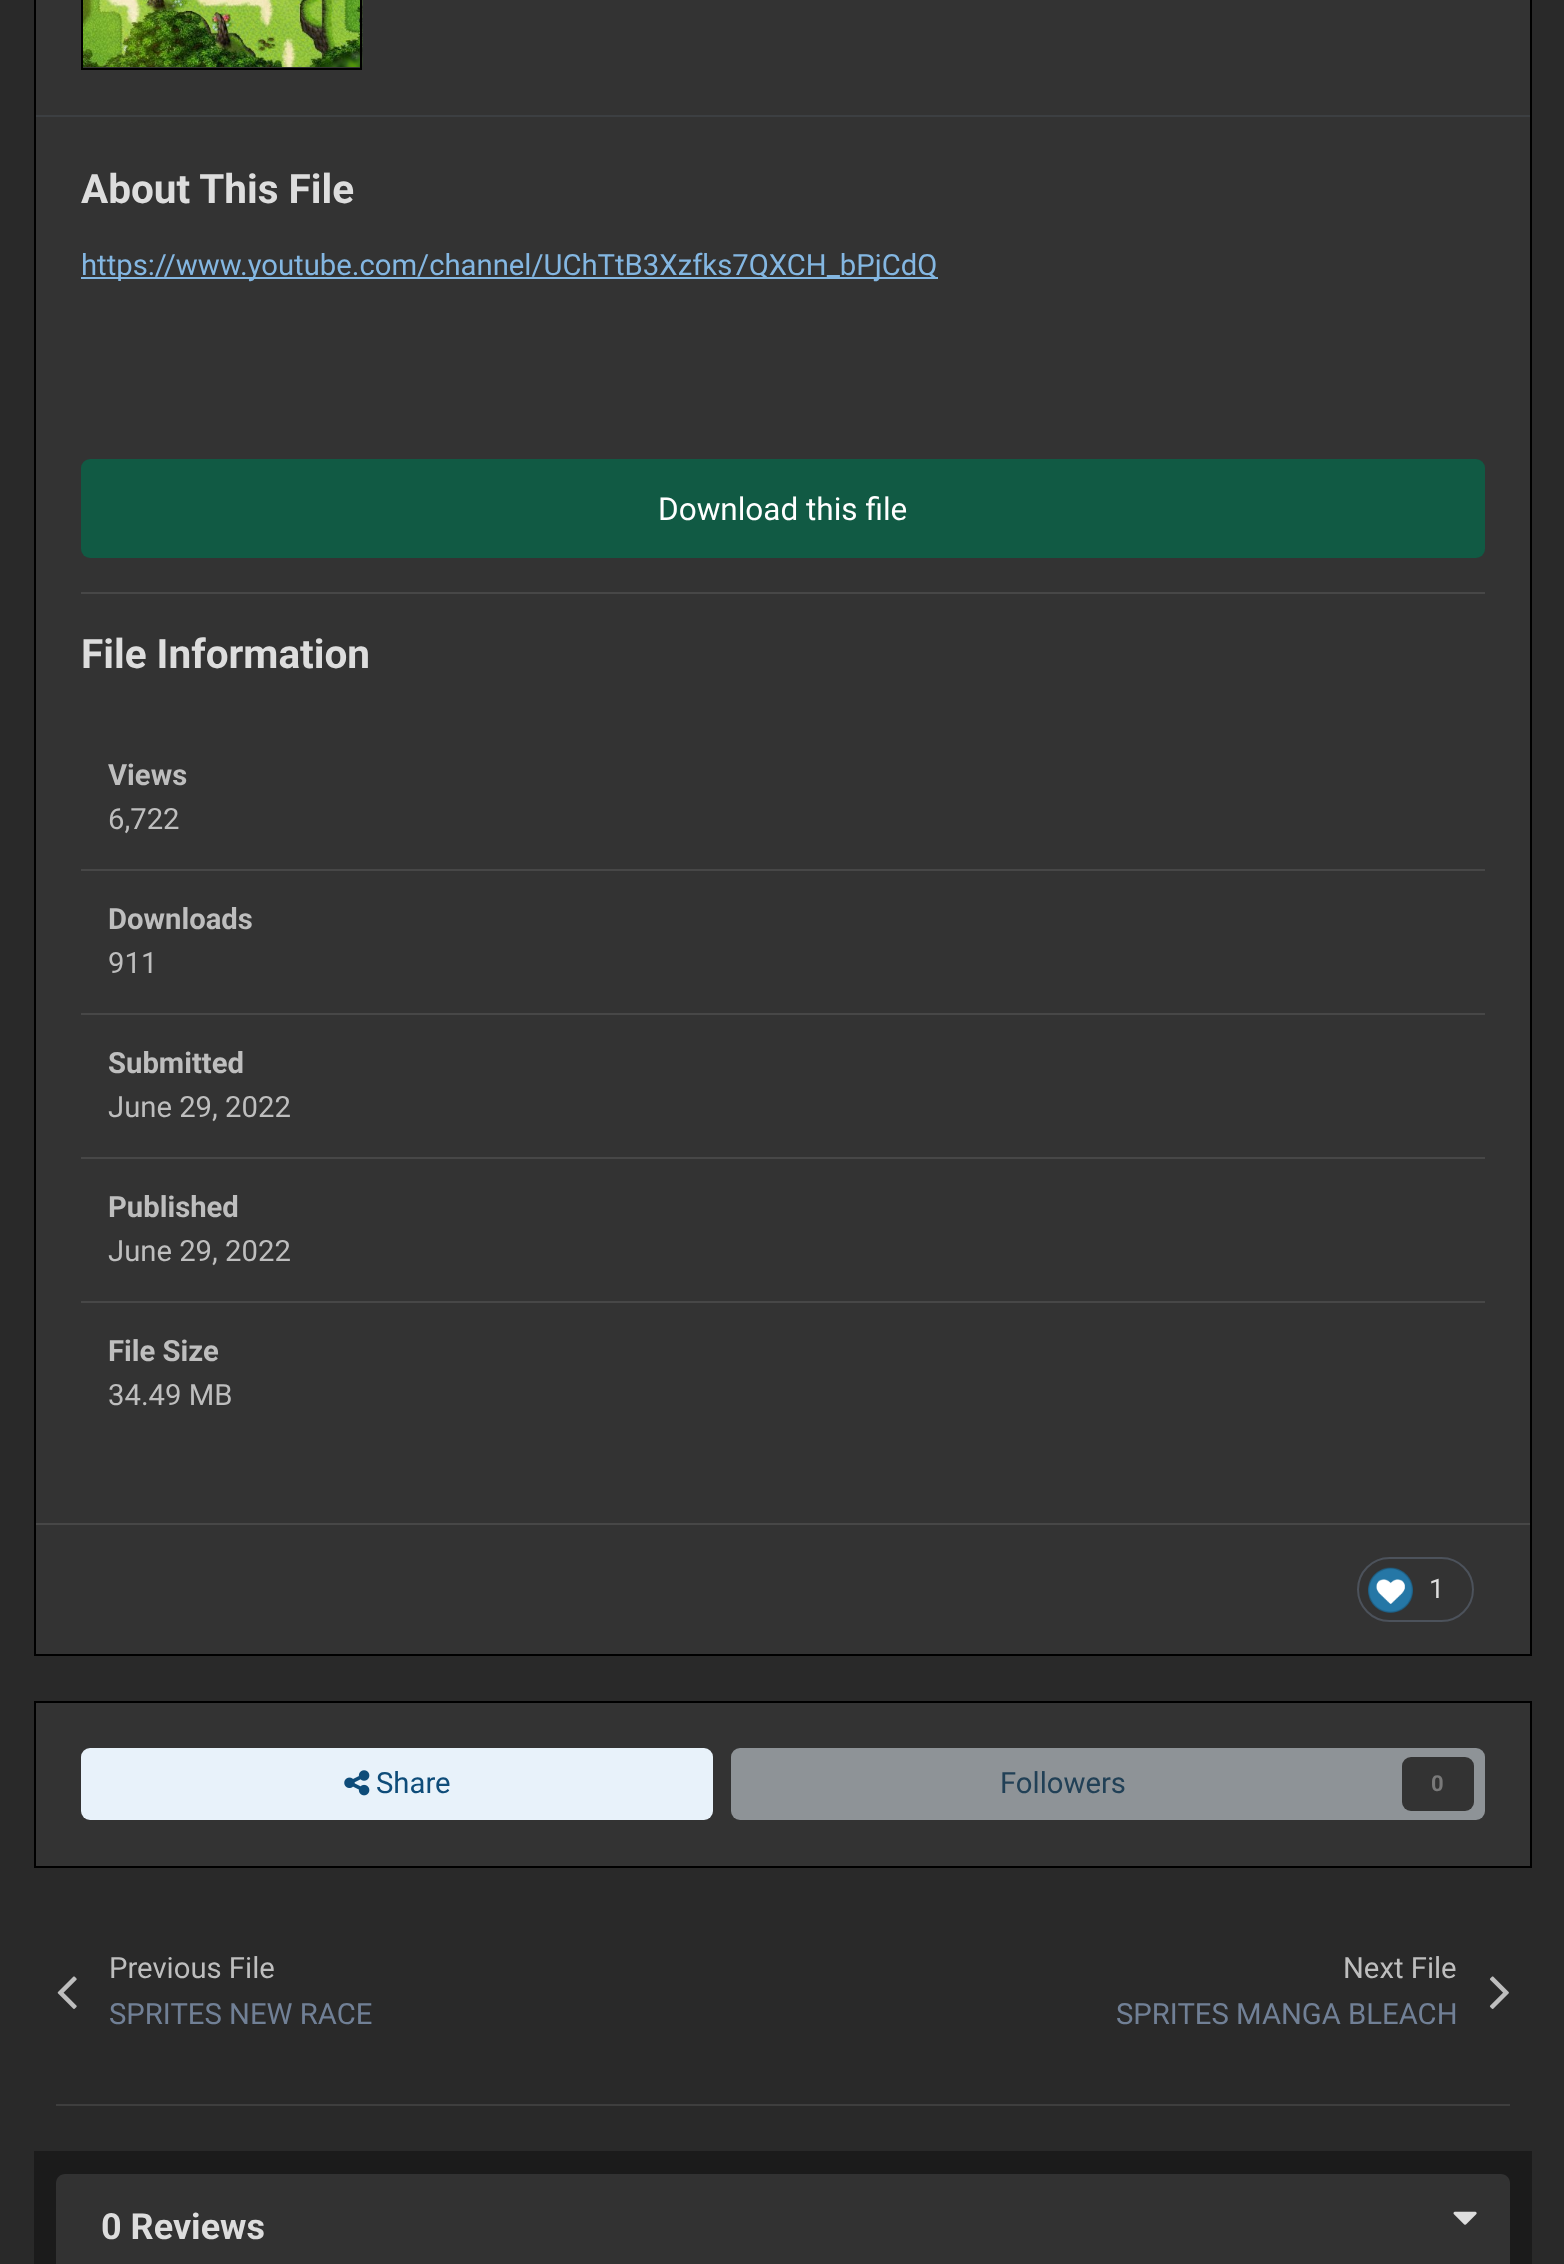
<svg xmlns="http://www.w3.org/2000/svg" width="1564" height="2264">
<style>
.a{font:bold 40.5px Roboto;fill:#ddd}
.b{font:29.25px Roboto;fill:#84b7e2}
.c{font:31.5px Roboto;fill:#fff}
.d{font:bold 29.25px Roboto;fill:#bebebe}
.e{font:29.25px Roboto;fill:#bebebe}
.f{font:27px Roboto;fill:#ddd}
.g{font:29.25px Roboto;fill:#0e4c79}
.h{font:29.25px Roboto;fill:#214056}
.i{font:bold 22px Roboto;fill:#797979}
.j{font:29.25px Roboto;fill:#718096}
.k{font:bold 36px Roboto;fill:#ddd}
</style>
<rect width="100%" height="100%" fill="#292929"/>
<path fill="#333" stroke="#000" stroke-width="2" d="M35 -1h1496v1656H35z"/>
<path fill="#3c3f42" d="M36 115h1494v2H36z"/>
<image href="1.png" x="83" y="0" width="280" height="67"/>
<path fill="none" stroke="#000" stroke-width="2" d="M82 -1h279v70H82z"/>
<path fill="#84b7e2" d="M81 277h857v2H81z"/>
<rect fill="#115a44" x="81" y="459" width="1404" height="99" rx="9"/>
<path fill="#474747" d="M81 592h1404v2H81z"/>
<path fill="#474747" d="M81 869h1404v2H81z"/>
<path fill="#474747" d="M81 1013h1404v2H81z"/>
<path fill="#474747" d="M81 1157h1404v2H81z"/>
<path fill="#474747" d="M81 1301h1404v2H81z"/>
<path fill="#474747" d="M36 1523h1494v2H36z"/>
<rect fill="none" stroke="#4c525b" stroke-width="2" x="1358" y="1558" width="115" height="63" rx="31.5"/>
<image href="2.png" x="1368" y="1567" width="45" height="46"/>
<path fill="#333" stroke="#000" stroke-width="2" d="M35 1702h1496v165H35z"/>
<rect fill="#e8f2fa" x="81" y="1748" width="632" height="72" rx="9"/>
<image href="3.png" x="344" y="1770" width="26" height="26"/>
<rect fill="#8e9397" x="731" y="1748" width="754" height="72" rx="9"/>
<rect fill="#333" x="1402" y="1757" width="72" height="54" rx="9"/>
<image href="4.png" x="57" y="1976" width="20" height="33"/>
<image href="5.png" x="1489" y="1976" width="20" height="33"/>
<path fill="#3e3e3e" d="M56 2104h1454v2H56z"/>
<path fill="#1b1b1b" d="M34 2151h1498v113H34z"/>
<path fill="#323232" d="M65 2174h1436c5 0 9 4 9 9v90h-1454v-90c0-5 4-9 9-9z"/>
<image href="6.png" x="1453" y="2211" width="24" height="14"/>
<text class="a" x="81" y="203">About This File</text>
<text class="b" x="81" y="275">https://www.youtube.com/channel/UChTtB3Xzfks7QXCH_bPjCdQ</text>
<text class="c" x="658" y="520">Download this file</text>
<text class="a" x="81" y="668">File Information</text>
<text class="d" x="108" y="785">Views</text>
<text class="e" x="108" y="829">6,722</text>
<text class="d" x="108" y="929">Downloads</text>
<text class="e" x="108" y="973">911</text>
<text class="d" x="108" y="1073">Submitted</text>
<text class="e" x="108" y="1117">June 29, 2022</text>
<text class="d" x="108" y="1217">Published</text>
<text class="e" x="108" y="1261">June 29, 2022</text>
<text class="d" x="108" y="1361">File Size</text>
<text class="e" x="108" y="1405">34.49 MB</text>
<text class="f" x="1429" y="1598">1</text>
<text class="g" x="376" y="1793">Share</text>
<text class="h" x="1000" y="1793">Followers</text>
<text class="i" x="1431" y="1791">0</text>
<text class="e" x="109" y="1978">Previous File</text>
<text class="j" x="109" y="2024">SPRITES NEW RACE</text>
<text class="e" x="1343" y="1978">Next File</text>
<text class="j" x="1116" y="2024">SPRITES MANGA BLEACH</text>
<text class="k" x="101" y="2239">0 Reviews</text>
</svg>
